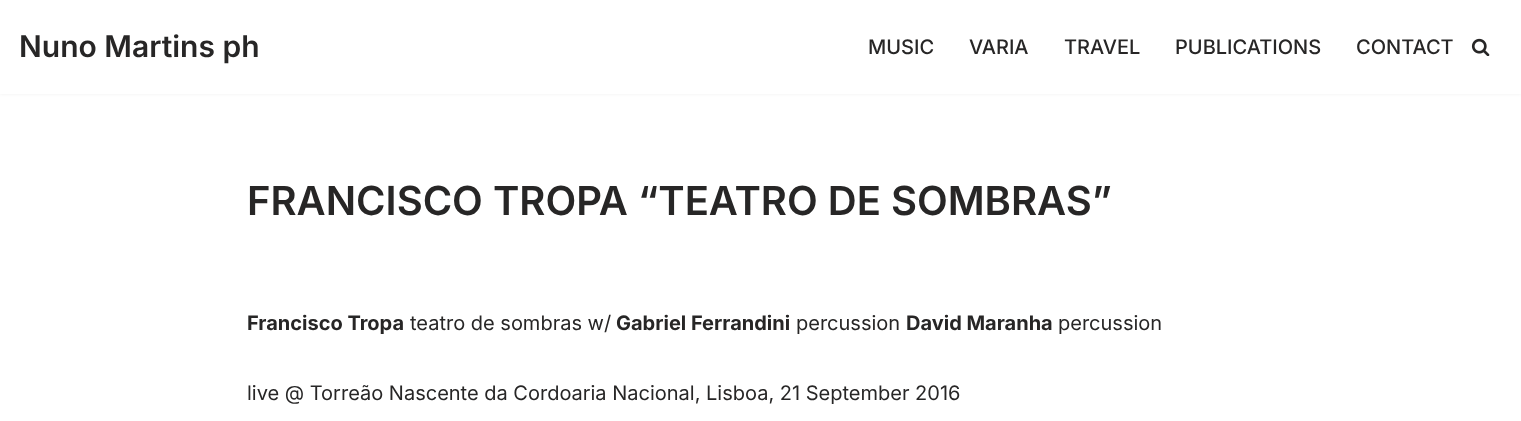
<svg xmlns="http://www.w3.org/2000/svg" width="1521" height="421">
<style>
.a{font:600 30px Inter;fill:#272626}
.b{font:500 20px Inter;fill:#272626}
.c{font:600 40px Inter;fill:#272626}
.d{font:bold 20px Inter;fill:#272626}
.e{font:20px Inter;fill:#272626}
</style>
<rect width="100%" height="100%" fill="#fff"/>
<path fill="#0000001a" filter="blur(2px)" d="M0 -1h1521v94H0z"/>
<path fill="#fff" d="M0 0h1521v94H0z"/>
<image href="1.png" x="1471" y="38" width="19" height="18"/>
<text class="a" x="19" y="57">Nuno Martins ph</text>
<text class="b" x="868" y="54">MUSIC</text>
<text class="b" x="969" y="54">VARIA</text>
<text class="b" x="1064" y="54">TRAVEL</text>
<text class="b" x="1175" y="54">PUBLICATIONS</text>
<text class="b" x="1356" y="54">CONTACT</text>
<text class="c" x="247" y="215">FRANCISCO TROPA “TEATRO DE SOMBRAS”</text>
<text class="d" x="247" y="330">Francisco Tropa</text>
<text class="e" x="410" y="330">teatro de sombras w/</text>
<text class="d" x="616" y="330">Gabriel Ferrandini</text>
<text class="e" x="796" y="330">percussion</text>
<text class="d" x="906" y="330">David Maranha</text>
<text class="e" x="1058" y="330">percussion</text>
<text class="e" x="247" y="400">live @ Torreão Nascente da Cordoaria Nacional, Lisboa, 21 September 2016</text>
</svg>
